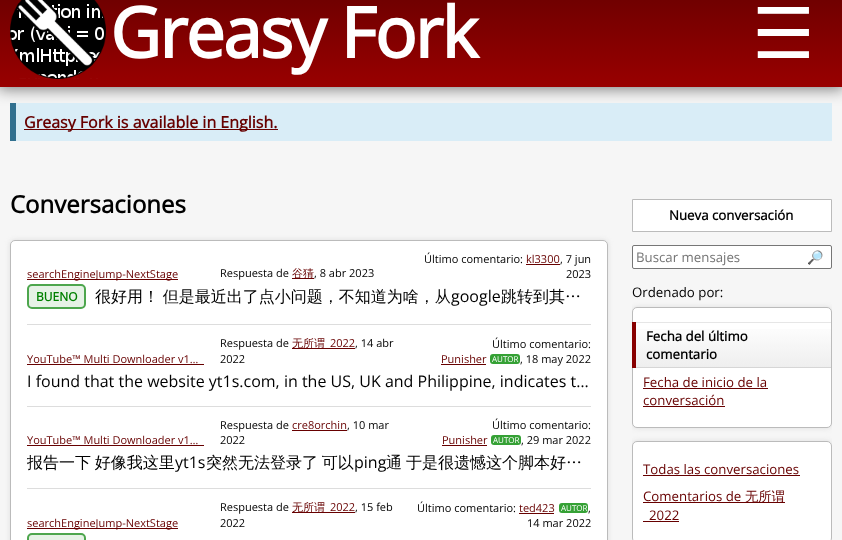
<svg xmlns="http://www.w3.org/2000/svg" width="842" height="540">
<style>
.a{font:bold 70px Open Sans;letter-spacing:-2px;fill:#fff}
.b{font:70px DejaVu Sans;fill:#fff}
.c{font:bold 16px Open Sans;fill:#670000}
.d{font:bold 24px Open Sans;fill:#000}
.e{font:11px Open Sans;fill:#670000}
.f{font:11px Open Sans;fill:#000}
.g{font:500 11px WenQuanYi Zen Hei;fill:#670000}
.h{font:bold 12px Open Sans;fill:#008000}
.i{font:500 16px WenQuanYi Zen Hei;fill:#000}
.j{font:16px Open Sans;fill:#000}
.k{font:8px Open Sans;fill:#fff}
.l{font:bold 13.25px Open Sans;fill:#000}
.m{font:13.25px Open Sans;fill:#757575}
.n{font:13.25px Noto Color Emoji;fill:#808080}
.o{font:13.25px Open Sans;fill:#000}
.p{font:13.25px Open Sans;fill:#670000}
.q{font:500 13.25px WenQuanYi Zen Hei;fill:#670000}
</style>
<defs>
<linearGradient id="g1" gradientUnits="userSpaceOnUse" x1="421" y1="-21" x2="421" y2="87"><stop offset="0" stop-color="#670000"/><stop offset="1" stop-color="#900"/></linearGradient>
<clipPath id="clip1"><path d="M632 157h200v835H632z"/></clipPath>
<linearGradient id="g2" gradientUnits="userSpaceOnUse" x1="734" y1="322" x2="734" y2="368"><stop offset="0" stop-color="#fff"/><stop offset="1" stop-color="#eee"/></linearGradient>
</defs>
<rect width="100%" height="100%" fill="#f6f6f6"/>
<path fill="#00000080" filter="blur(7.5px)" d="M-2 -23h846v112H-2z"/>
<path fill="url(#g1)" d="M0 0h842v87H0z"/>
<image href="1.png" x="10" y="0" width="96" height="79"/>
<path fill="#d9edf7" d="M16 103h816v38H16z"/>
<path fill="#31708f" d="M10 103h6v38H10z"/>
<path fill="#670000" d="M24 129h254v1H24z"/>
<rect fill="#ddd" filter="blur(2.5px)" x="10" y="240" width="598" height="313" rx="5"/>
<rect fill="#fff" stroke="#bbb" x="10.5" y="240.5" width="597" height="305" rx="4.5"/>
<path fill="#670000" d="M27 279h151v1H27z"/>
<path fill="#670000" d="M292 278h22v1H292z"/>
<path fill="#670000" d="M526 264h34v1H526z"/>
<rect fill="#e6f2e6" stroke="#4da64d" stroke-width="2" x="28" y="285" width="57" height="23" rx="4"/>
<path fill="#ddd" d="M27 324h564v1H27z"/>
<path fill="#670000" d="M27 364h177v1H27z"/>
<path fill="#670000" d="M292 348h63v1H292z"/>
<path fill="#670000" d="M441 364h45v1H441z"/>
<rect fill="#35a135" x="490" y="354" width="30" height="10" rx="3"/>
<path fill="#ddd" d="M27 406h564v1H27z"/>
<path fill="#670000" d="M27 445h177v1H27z"/>
<path fill="#670000" d="M292 430h55v1H292z"/>
<path fill="#670000" d="M442 445h45v1H442z"/>
<rect fill="#35a135" x="491" y="435" width="30" height="10" rx="3"/>
<path fill="#ddd" d="M27 488h564v1H27z"/>
<path fill="#670000" d="M27 528h151v1H27z"/>
<path fill="#670000" d="M292 512h63v1H292z"/>
<path fill="#670000" d="M519 513h35v1H519z"/>
<rect fill="#35a135" x="559" y="503" width="29" height="10" rx="3"/>
<rect fill="#e6f2e6" stroke="#4da64d" stroke-width="2" x="28" y="534" width="57" height="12" rx="4"/>
<path fill="#fff" stroke="#bbb" d="M632.5 199.5h199v32H632.5z"/>
<rect fill="#fff" stroke="#767676" x="632.5" y="245.5" width="199" height="23" rx="1.5"/>
<g clip-path="url(#clip1)">
<rect fill="#ddd" filter="blur(2.5px)" x="632" y="307" width="200" height="121" rx="5"/>
</g>
<rect fill="#fff" stroke="#bbb" x="632.5" y="307.5" width="199" height="120" rx="4.5"/>
<path fill="url(#g2)" d="M636 329h195v38H636z"/>
<path fill="#d6d6d6" d="M636 367h195v1H636z"/>
<path fill="#e6e6e6" d="M636 322h195v1H636z"/>
<path fill="#800" d="M632 322h4v46H632z"/>
<path fill="#670000" d="M643 388h125v1H643z"/>
<path fill="#670000" d="M643 406h82v1H643z"/>
<g clip-path="url(#clip1)">
<rect fill="#ddd" filter="blur(2.5px)" x="632" y="441" width="200" height="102" rx="5"/>
</g>
<rect fill="#fff" stroke="#bbb" x="632.5" y="441.5" width="199" height="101" rx="4.5"/>
<path fill="#670000" d="M643 475h157v1H643z"/>
<path fill="#670000" d="M643 502h142v1H643z"/>
<path fill="#670000" d="M643 521h36v1H643z"/>
<text class="a" x="110" y="58">Greasy Fork</text>
<text class="b" x="752" y="58">☰</text>
<text class="c" x="24" y="128">Greasy Fork is available in English.</text>
<text class="d" x="10" y="213">Conversaciones</text>
<text class="e" x="27" y="278">searchEngineJump-NextStage</text>
<text class="f" x="220" y="277">Respuesta de</text>
<text class="g" x="292" y="277">谷猜</text>
<text class="f" x="314" y="277">, 8 abr 2023</text>
<text class="f" x="424" y="263">Último comentario:</text>
<text class="e" x="526" y="263">kl3300</text>
<text class="f" x="560" y="263">, 7 jun</text>
<text class="f" x="566" y="278">2023</text>
<text class="h" x="36" y="301">BUENO</text>
<text class="i" x="95" y="302" word-spacing="-1">很好用！ 但是最近出了点小问题，不知道为啥，从</text>
<text class="j" x="451" y="302">google</text>
<text class="i" x="501" y="302">跳转到其…</text>
<text class="e" x="27" y="363">YouTube™ Multi Downloader v1…</text>
<text class="f" x="220" y="347">Respuesta de</text>
<text class="g" x="292" y="347">无所谓</text>
<text class="e" x="330" y="347">2022</text>
<text class="f" x="355" y="347">, 14 abr</text>
<text class="f" x="220" y="363">2022</text>
<text class="f" x="492" y="348">Último comentario:</text>
<text class="e" x="441" y="363">Punisher</text>
<text class="k" x="492" y="362">AUTOR</text>
<text class="f" x="520" y="363">, 18 may 2022</text>
<text class="j" x="27" y="387">I found that the website yt1s.com, in the US, UK and Philippine, indicates t…</text>
<text class="e" x="27" y="444">YouTube™ Multi Downloader v1…</text>
<text class="f" x="220" y="429">Respuesta de</text>
<text class="e" x="292" y="429">cre8orchin</text>
<text class="f" x="347" y="429">, 10 mar</text>
<text class="f" x="220" y="444">2022</text>
<text class="f" x="492" y="429">Último comentario:</text>
<text class="e" x="442" y="444">Punisher</text>
<text class="k" x="493" y="443">AUTOR</text>
<text class="f" x="521" y="444">, 29 mar 2022</text>
<text class="i" x="27" y="468" word-spacing="-1">报告一下 好像我这里</text>
<text class="j" x="175" y="468">yt1s</text>
<text class="i" x="206" y="468" word-spacing="-1">突然无法登录了 可以</text>
<text class="j" x="354" y="468">ping</text>
<text class="i" x="386" y="468">通</text>
<text class="i" x="406" y="468">于是很遗憾这个脚本好…</text>
<text class="e" x="27" y="527">searchEngineJump-NextStage</text>
<text class="f" x="220" y="511">Respuesta de</text>
<text class="g" x="292" y="511">无所谓</text>
<text class="e" x="330" y="511">2022</text>
<text class="f" x="355" y="511">, 15 feb</text>
<text class="f" x="220" y="527">2022</text>
<text class="f" x="417" y="512">Último comentario:</text>
<text class="e" x="519" y="512">ted423</text>
<text class="k" x="561" y="511">AUTOR</text>
<text class="f" x="588" y="512">,</text>
<text class="f" x="527" y="527">14 mar 2022</text>
<text class="l" x="669" y="220">Nueva conversación</text>
<text class="m" x="636" y="262">Buscar mensajes</text>
<text class="n" x="807" y="262">🔎</text>
<text class="o" x="632" y="297">Ordenado por:</text>
<text class="l" x="646" y="341">Fecha del último</text>
<text class="l" x="646" y="359">comentario</text>
<text class="p" x="643" y="387">Fecha de inicio de la</text>
<text class="p" x="643" y="405">conversación</text>
<text class="p" x="643" y="474">Todas las conversaciones</text>
<text class="p" x="643" y="501">Comentarios de</text>
<text class="q" x="745" y="501">无所谓</text>
<text class="p" x="649" y="520">2022</text>
</svg>
